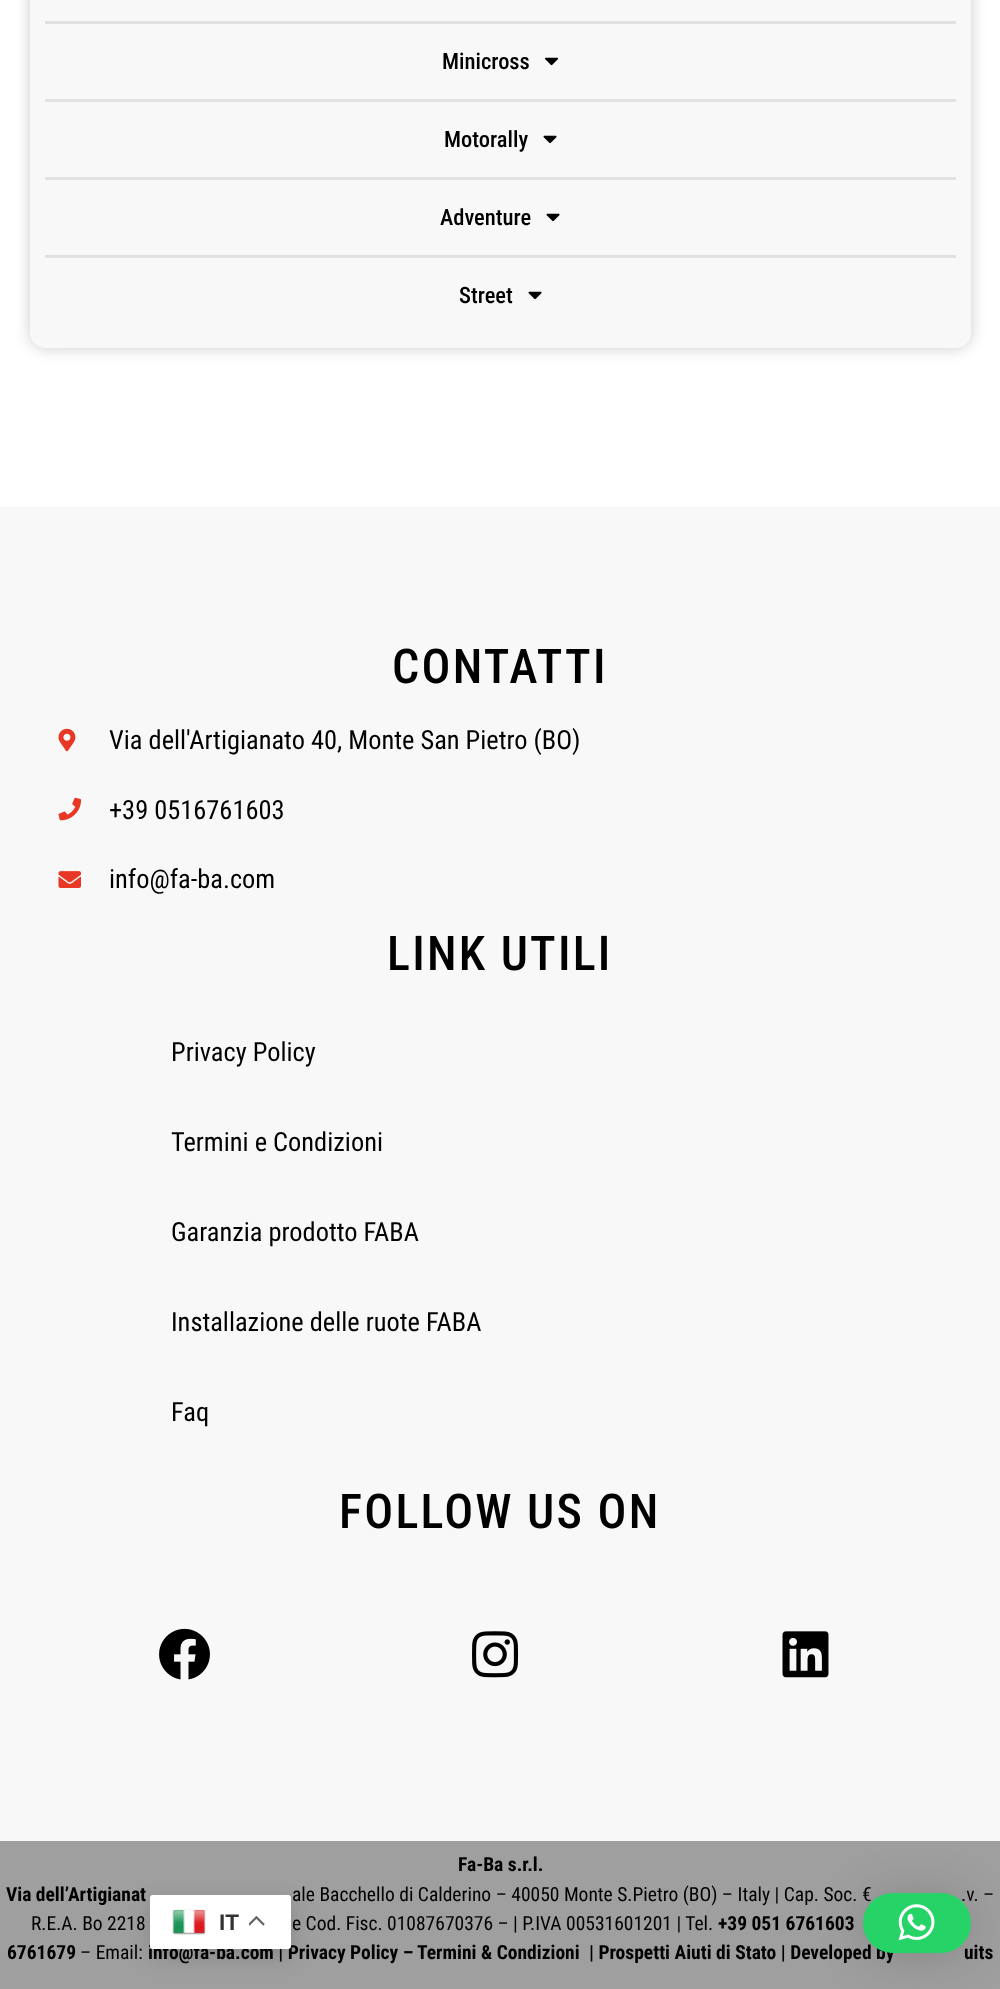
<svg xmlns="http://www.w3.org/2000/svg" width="1000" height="1989">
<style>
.a{font:500 22.5px Roboto Condensed;fill:#000}
.b{font:500 48px Roboto Condensed;letter-spacing:2.25px;fill:#000}
.c{font:26.4px Roboto Condensed;fill:#000}
.d{font:bold 19.5px Roboto Condensed;fill:#000}
.e{font:19.5px Roboto Condensed;fill:#000}
.f{font:bold 22.5px Liberation Sans;fill:#333}
</style>
<rect width="100%" height="100%" fill="#fff"/>
<rect fill="#00000033" filter="blur(7.5px)" x="30" y="-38" width="941" height="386" rx="15"/>
<rect fill="#f8f8f8" x="30" y="-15" width="941" height="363" rx="15"/>
<path fill="#e1e1e1" d="M45 21h911v3H45z"/>
<path fill="#e1e1e1" d="M45 99h911v3H45z"/>
<image href="1.png" x="545" y="57" width="13" height="9"/>
<path fill="#e1e1e1" d="M45 177h911v3H45z"/>
<image href="2.png" x="543" y="135" width="14" height="9"/>
<path fill="#e1e1e1" d="M45 255h911v3H45z"/>
<image href="2.png" x="546" y="213" width="14" height="9"/>
<image href="2.png" x="528" y="291" width="14" height="9"/>
<path fill="#f8f8f8" d="M0 507h1000v1334H0z"/>
<image href="3.png" x="58" y="728" width="18" height="24"/>
<image href="4.png" x="58" y="797" width="23" height="24"/>
<image href="5.png" x="58" y="871" width="23" height="17"/>
<image href="6.png" x="159" y="1628" width="51" height="52"/>
<image href="7.png" x="472" y="1631" width="47" height="47"/>
<image href="8.png" x="782" y="1631" width="47" height="47"/>
<path fill="#9f9f9f" d="M0 1841h1000v148H0z"/>
<rect fill="#00000026" filter="blur(11px)" x="150" y="1902" width="141" height="54" rx="3"/>
<rect fill="#00000029" filter="blur(24px)" x="863" y="1896" width="108" height="60" rx="30"/>
<text class="a" x="442" y="69">Minicross</text>
<text class="a" x="444" y="147">Motorally</text>
<text class="a" x="440" y="225">Adventure</text>
<text class="a" x="459" y="303">Street</text>
<text class="b" x="392" y="683">CONTATTI</text>
<text class="c" x="109" y="749">Via dell'Artigianato 40, Monte San Pietro (BO)</text>
<text class="c" x="109" y="819">+39 0516761603</text>
<text class="c" x="109" y="888">info@fa-ba.com</text>
<text class="b" x="387" y="970">LINK UTILI</text>
<text class="c" x="171" y="1061">Privacy Policy</text>
<text class="c" x="171" y="1151">Termini e Condizioni</text>
<text class="c" x="171" y="1241">Garanzia prodotto FABA</text>
<text class="c" x="171" y="1331">Installazione delle ruote FABA</text>
<text class="c" x="171" y="1421">Faq</text>
<text class="b" x="339" y="1528">FOLLOW US ON</text>
<text class="d" x="458" y="1871">Fa-Ba s.r.l.</text>
<text class="d" x="6" y="1901">Via dell’Artigianat</text>
<text class="e" x="292" y="1901">ale Bacchello di Calderino – 40050 Monte S.Pietro (BO) – Italy | Cap. Soc. €</text>
<text class="e" x="961" y="1901">.v. –</text>
<text class="e" x="31" y="1930">R.E.A. Bo 2218</text>
<text class="e" x="292" y="1930">e Cod. Fisc. 01087670376 – | P.IVA 00531601201 | Tel.</text>
<text class="d" x="718" y="1930">+39 051 6761603</text>
<text class="d" x="7" y="1959">6761679</text>
<text class="e" x="80" y="1959">– Email:</text>
<text class="d" x="148" y="1959">info@fa-ba.com | Privacy Policy –</text>
<text class="d" x="417" y="1959">Termini &amp; Condizioni</text>
<text class="d" x="589" y="1959">| Prospetti Aiuti di Stato | Developed by</text>
<text class="d" x="964" y="1959">uits</text>
<rect fill="#fff" x="150" y="1895" width="141" height="54" rx="3"/>
<image href="9.png" x="172" y="1909" width="34" height="26"/>
<text class="f" x="219" y="1930">IT</text>
<image href="10.png" x="249" y="1916" width="16" height="10"/>
<rect fill="#25d366" x="863" y="1893" width="108" height="60" rx="30"/>
<image href="11.png" x="898" y="1904" width="37" height="37"/>
</svg>
